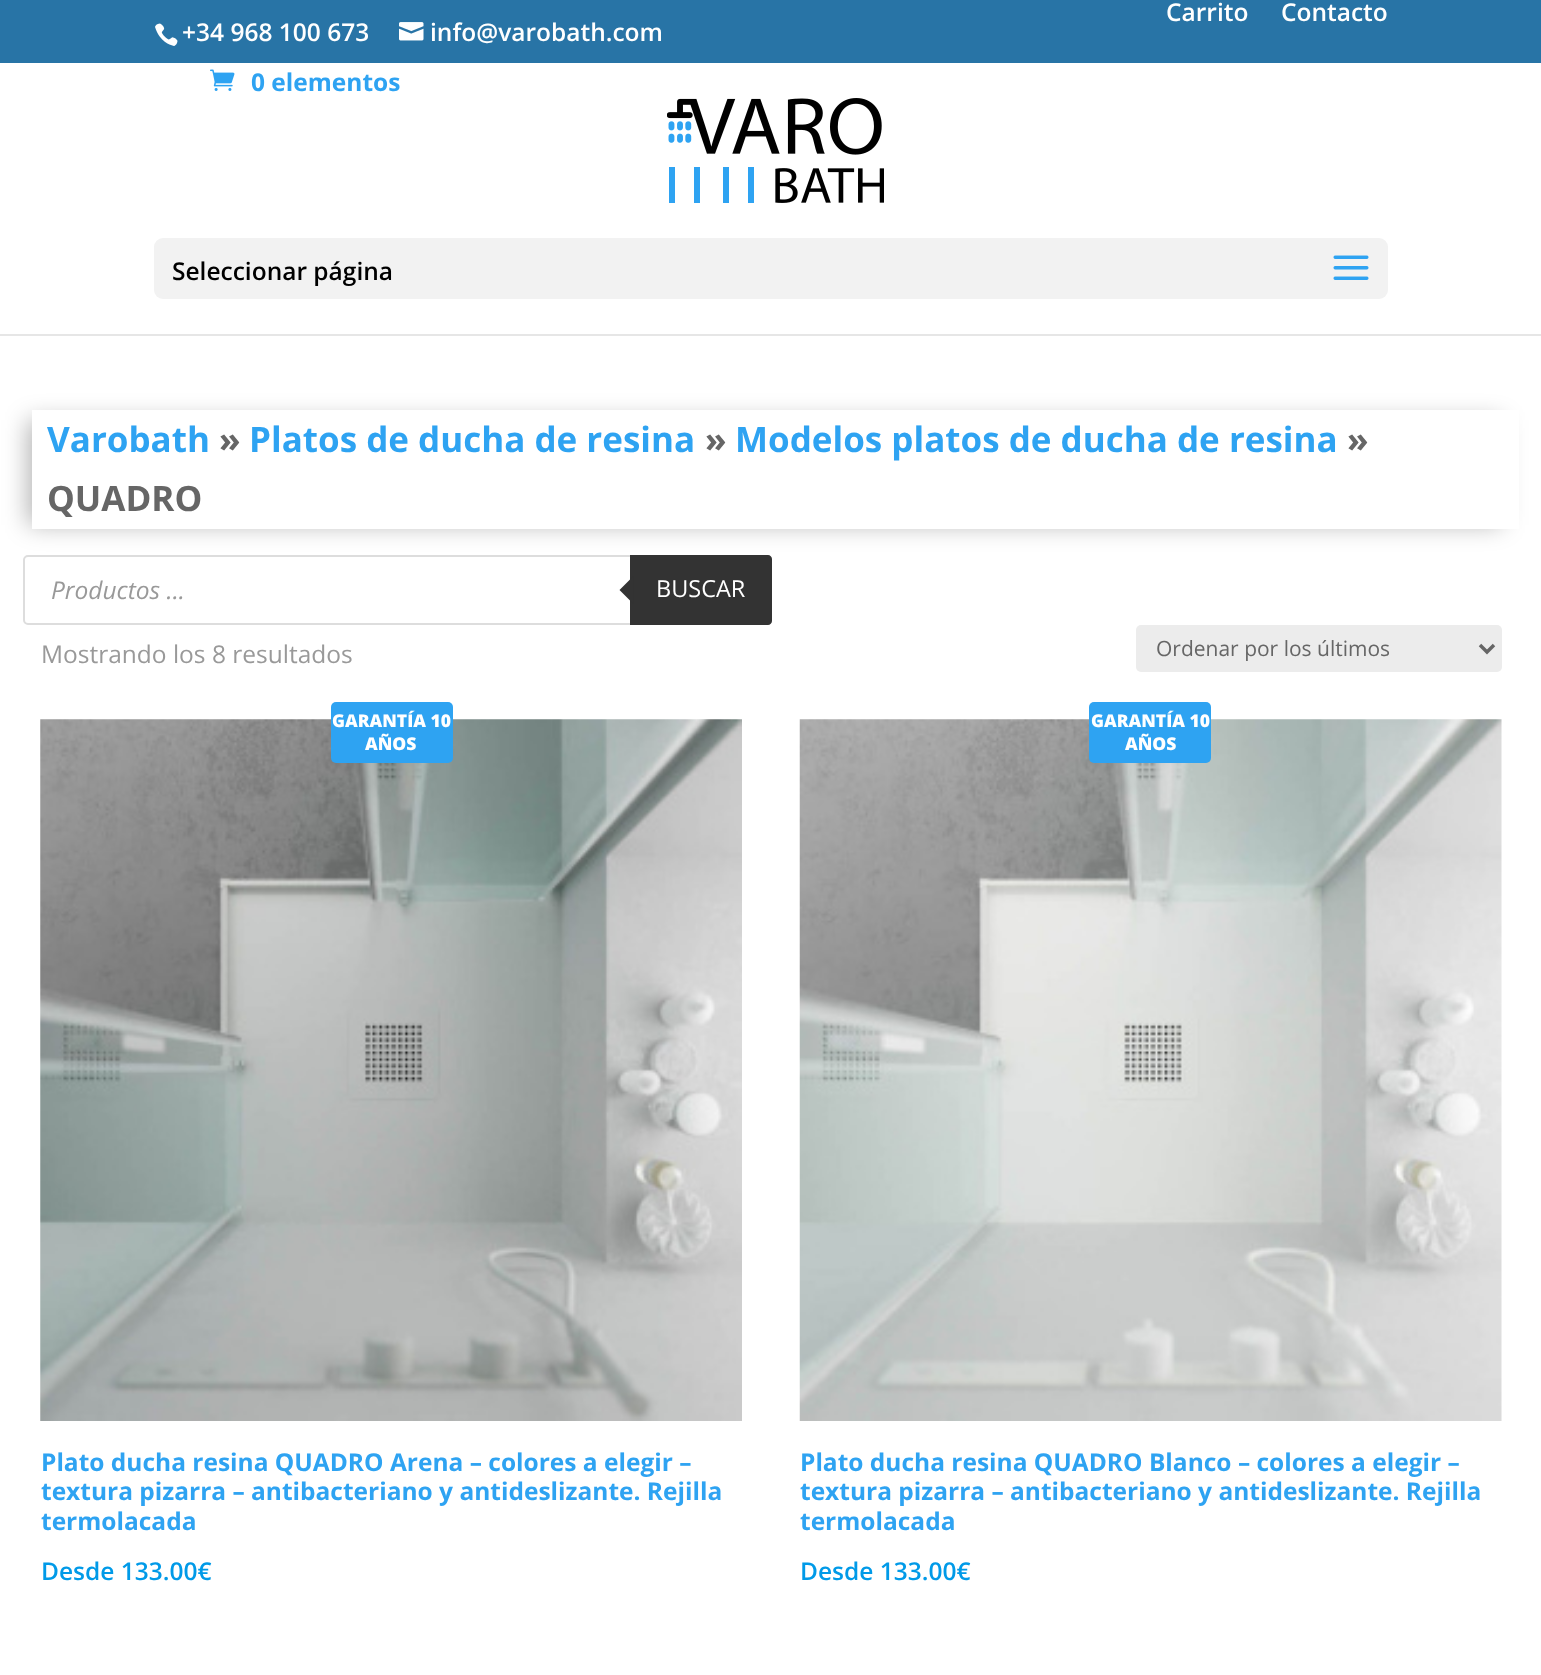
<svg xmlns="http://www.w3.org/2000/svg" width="1541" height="1675">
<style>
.a{font:600 24.5px Open Sans;fill:#fff}
.b{font:bold 24.5px Open Sans;fill:#2ea3f2}
.c{font:600 24.5px Open Sans;fill:#000}
.d{font:bold 35px Open Sans;fill:#2ea3f2}
.e{font:bold 35px Open Sans;fill:#666}
.f{font:italic 24.5px Open Sans;fill:#999}
.g{font:23.5px Open Sans;fill:#fff}
.h{font:24.5px Open Sans;fill:#999}
.i{font:21px Open Sans;fill:#666}
.j{font:800 17.5px Open Sans;fill:#fff}
.k{font:600 24.5px Open Sans;fill:#009ae8}
</style>
<defs>
<clipPath id="clip1"><path d="M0 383h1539v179h-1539zm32 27h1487v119h-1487z" clip-rule="evenodd"/></clipPath>
</defs>
<rect width="100%" height="100%" fill="#fff"/>
<path fill="#2874a6" d="M0 0h1541v63H0z"/>
<image href="1.png" x="210" y="69" width="25" height="22"/>
<image href="2.png" x="155" y="23" width="23" height="23"/>
<image href="3.png" x="399" y="22" width="25" height="19"/>
<path fill="#e6e6e6" d="M0 334v2h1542v-271v269z"/>
<image href="4.png" x="667" y="98" width="217" height="105"/>
<rect fill="#f2f2f2" x="154" y="238" width="1234" height="61" rx="9"/>
<image href="5.png" x="1333" y="255" width="36" height="25"/>
<g clip-path="url(#clip1)">
<path fill="#0000004d" filter="blur(12px)" d="M28 420h1474v105H28z"/>
</g>
<rect fill="none" stroke="#ddd" stroke-width="2" x="24" y="556" width="747" height="68" rx="4"/>
<path fill="#333" d="M630 555h138c2 0 4 2 4 4v62c0 2-2 4-4 4h-138z"/>
<path fill="#333" d="M633.5 576v28l-14-14z"/>
<rect fill="#ececec" x="1136" y="625" width="366" height="47" rx="5"/>
<path fill="none" stroke="#666" stroke-width="3.5" d="M1480 645l7 7l7-7"/>
<image href="6.png" x="40" y="719" width="702" height="702"/>
<rect fill="#2ea3f2" x="331" y="702" width="122" height="61" rx="5"/>
<image href="7.png" x="799" y="719" width="703" height="702"/>
<rect fill="#2ea3f2" x="1089" y="702" width="122" height="61" rx="5"/>
<text class="a" x="1166" y="21">Carrito</text>
<text class="a" x="1281" y="21">Contacto</text>
<text class="b" x="251" y="91">0 elementos</text>
<text class="a" x="182" y="41">+34 968 100 673</text>
<text class="a" x="430" y="41">info@varobath.com</text>
<text class="c" x="172" y="280">Seleccionar página</text>
<text class="d" x="47" y="452">Varobath</text>
<text class="e" x="219" y="452">»</text>
<text class="d" x="249" y="452">Platos de ducha de resina</text>
<text class="e" x="705" y="452">»</text>
<text class="d" x="735" y="452">Modelos platos de ducha de resina</text>
<text class="e" x="1347" y="452">»</text>
<text class="e" x="47" y="511">QUADRO</text>
<text class="f" x="51" y="599">Productos ...</text>
<text class="g" x="656" y="597">BUSCAR</text>
<text class="h" x="41" y="663">Mostrando los 8 resultados</text>
<text class="i" x="1156" y="656">Ordenar por los últimos</text>
<text class="j" x="332" y="727">GARANTÍA 10</text>
<text class="j" x="365" y="750">AÑOS</text>
<text class="b" x="41" y="1471">Plato ducha resina QUADRO Arena – colores a elegir –</text>
<text class="b" x="41" y="1500">textura pizarra – antibacteriano y antideslizante. Rejilla</text>
<text class="b" x="41" y="1530">termolacada</text>
<text class="k" x="41" y="1580">Desde 133.00€</text>
<text class="j" x="1091" y="727">GARANTÍA 10</text>
<text class="j" x="1125" y="750">AÑOS</text>
<text class="b" x="800" y="1471">Plato ducha resina QUADRO Blanco – colores a elegir –</text>
<text class="b" x="800" y="1500">textura pizarra – antibacteriano y antideslizante. Rejilla</text>
<text class="b" x="800" y="1530">termolacada</text>
<text class="k" x="800" y="1580">Desde 133.00€</text>
</svg>
